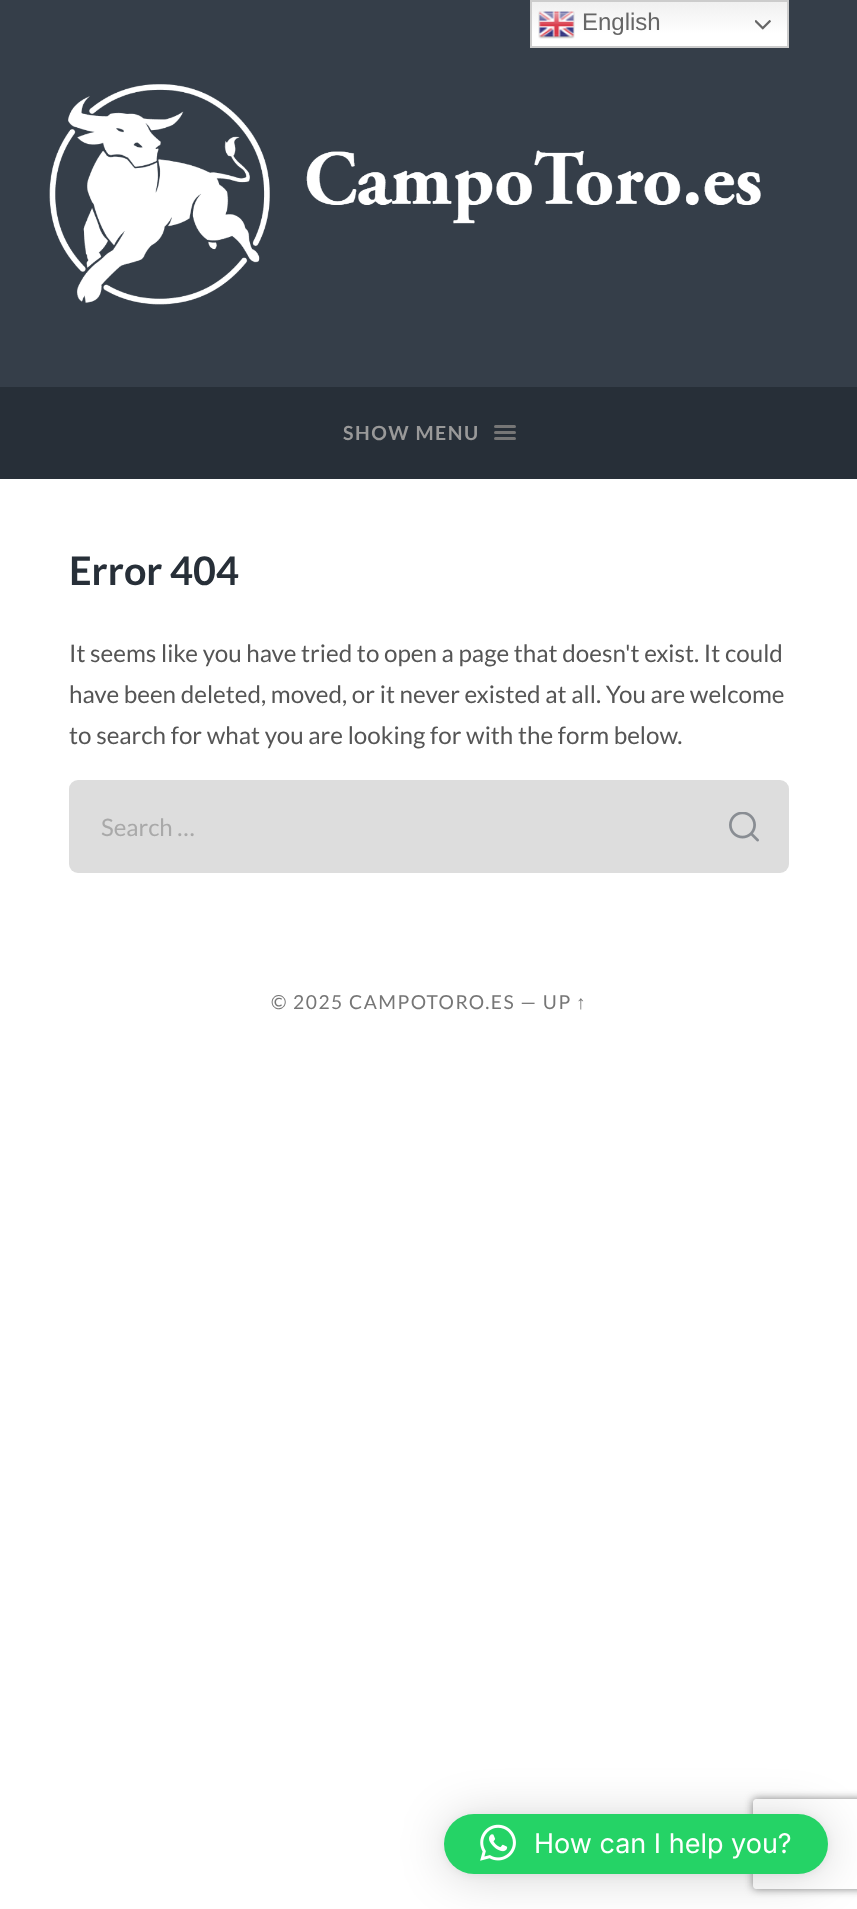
<svg xmlns="http://www.w3.org/2000/svg" width="857" height="1909">
<style>
.a{font:24px Liberation Sans;fill:#666}
.b{font:bold 19.5px Lato;letter-spacing:1.5px;fill:#999}
.c{font:bold 39.5px Lato;fill:#272f38}
.d{font:24.2px Lato;fill:#555}
.e{font:24px Lato;fill:#a9a9a9}
.f{font:19.25px Lato;letter-spacing:1.5px;fill:#767676}
.g{font:19.25px Liberation Sans;letter-spacing:1.5px;fill:#767676}
.h{font:27px Inter;fill:#fff}
</style>
<defs>
<linearGradient id="g1" gradientUnits="userSpaceOnUse" x1="659" y1="0" x2="659" y2="48"><stop offset="0" stop-color="#efefef"/><stop offset="0.7" stop-color="#fff"/></linearGradient>
<clipPath id="clip1"><path d="M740 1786h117v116h-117zm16 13h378c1.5 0 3 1.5 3 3v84c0 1.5-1.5 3-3 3h-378c-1.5 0-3-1.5-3-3v-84c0-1.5 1.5-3 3-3z" clip-rule="evenodd"/></clipPath>
</defs>
<rect width="100%" height="100%" fill="#fff"/>
<path fill="#353e49" d="M0 0h857v387H0z"/>
<path fill="url(#g1)" d="M532 2h255v44H532z"/>
<path fill="none" stroke="#ccc" stroke-width="2" d="M531 1h257v46H531z"/>
<image href="1.png" x="538" y="11" width="37" height="28"/>
<image href="2.png" x="755" y="20" width="16" height="10"/>
<image href="3.png" x="49" y="84" width="712" height="221"/>
<path fill="#272f38" d="M0 387h857v92H0z"/>
<rect fill="#767676" x="494" y="425" width="22" height="3" rx="1.5"/>
<rect fill="#767676" x="494" y="431" width="22" height="3" rx="1.5"/>
<rect fill="#767676" x="494" y="437" width="22" height="3" rx="1.5"/>
<rect fill="#ddd" x="69" y="780" width="720" height="93" rx="9"/>
<image href="4.png" x="729" y="812" width="30" height="30"/>
<rect fill="#00000029" filter="blur(24px)" x="444" y="1817" width="384" height="60" rx="30"/>
<rect fill="#0000000f" filter="blur(4.5px)" x="444" y="1815" width="384" height="60" rx="30"/>
<g clip-path="url(#clip1)">
<rect fill="#808080" filter="blur(4px)" x="753" y="1799" width="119" height="90" rx="3"/>
</g>
<rect fill="#25d366" x="444" y="1814" width="384" height="60" rx="30"/>
<image href="5.png" x="480" y="1824" width="36" height="37"/>
<text class="a" x="582" y="30">English</text>
<text class="b" x="343" y="440">SHOW MENU</text>
<text class="c" x="69" y="585">Error 404</text>
<text class="d" x="69" y="662">It seems like you have tried to open a page that doesn't exist. It could</text>
<text class="d" x="69" y="703">have been deleted, moved, or it never existed at all. You are welcome</text>
<text class="d" x="69" y="744">to search for what you are looking for with the form below.</text>
<text class="e" x="101" y="836">Search …</text>
<text class="f" x="271" y="1009">© 2025 CAMPOTORO.ES — UP</text>
<text class="g" x="576" y="1009">↑</text>
<text class="h" x="534" y="1853">How can I help you?</text>
</svg>
